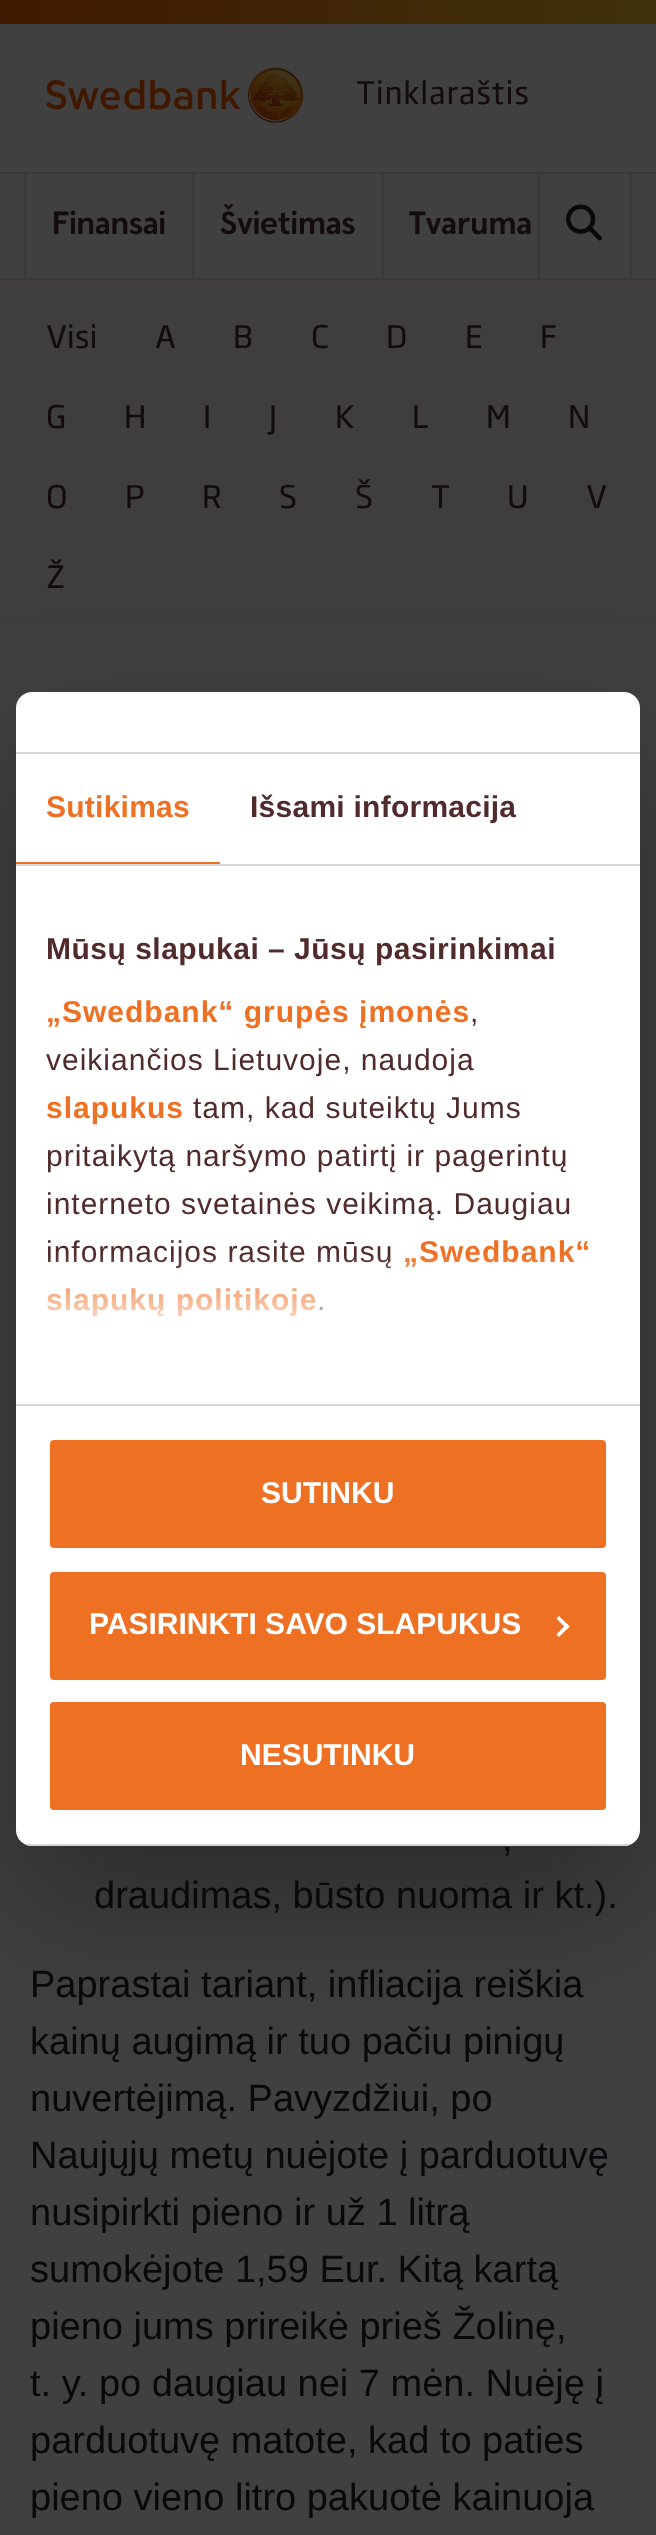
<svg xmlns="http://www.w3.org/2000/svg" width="656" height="2535">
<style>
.a{font:500 32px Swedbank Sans;letter-spacing:0.75px;fill:#140b0b}
.b{font:bold 32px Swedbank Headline;fill:#140b0b}
.c{font:500 32px Swedbank Sans;fill:#140b0b}
.d{font:38px Liberation Sans;fill:#08090a}
.e{font:bold 30px Liberation Sans;letter-spacing:0.25px;fill:#ee7023}
.f{font:bold 30px Liberation Sans;letter-spacing:0.25px;fill:#512b2b}
.g{font:bold 30px Liberation Sans;letter-spacing:0.5px;fill:#512b2b}
.h{font:bold 30px Liberation Sans;letter-spacing:1px;fill:#ee7023}
.i{font:30px Liberation Sans;letter-spacing:1px;fill:#512b2b}
.j{font:bold 30px Liberation Sans;fill:#fff}
</style>
<defs>
<linearGradient id="g1" gradientUnits="userSpaceOnUse" x1="0" y1="12" x2="656" y2="12"><stop offset="0" stop-color="#401800"/><stop offset="1" stop-color="#3f320b"/></linearGradient>
<clipPath id="clip1"><rect x="16" y="692" width="624" height="1154" rx="16"/></clipPath>
<linearGradient id="g2" gradientUnits="userSpaceOnUse" x1="315" y1="1403" x2="315" y2="1253"><stop offset="0" stop-color="#fff"/><stop offset="0.5" stop-color="#fff" stop-opacity="0.8"/><stop offset="1" stop-color="#fff" stop-opacity="0"/></linearGradient>
</defs>
<rect width="100%" height="100%" fill="#404040"/>
<path fill="url(#g1)" d="M0 0h656v24H0z"/>
<image href="1.png" x="46" y="67" width="258" height="56"/>
<path fill="#383838" d="M0 172h656v2H0z"/>
<path fill="#383838" d="M0 278h656v2H0z"/>
<path fill="#383838" d="M192 174h2v104H192z"/>
<path fill="#383838" d="M24 174h2v104H24z"/>
<path fill="#383838" d="M382 174h2v104H382z"/>
<path fill="#383838" d="M630 174h2v104H630z"/>
<path fill="#383838" d="M538 174h2v104H538z"/>
<image href="2.png" x="566" y="204" width="36" height="37"/>
<path fill="#3f3e3c" d="M0 280h656v344H0z"/>
<rect fill="#0000004d" filter="blur(68px)" x="16" y="756" width="624" height="1154" rx="16"/>
<rect fill="#fff" x="16" y="692" width="624" height="1154" rx="16"/>
<path fill="#d6d6d6" d="M16 752h624v2H16z"/>
<path fill="#d6d6d6" d="M16 864h624v2H16z"/>
<path fill="#ee7023" d="M16 862h204v2H16z"/>
<path fill="#d6d6d6" d="M16 1404h624v2H16z"/>
<g clip-path="url(#clip1)">
<path fill="#d6d6d6" d="M16 1844h624v2H16z"/>
</g>
<rect fill="#ee7023" stroke="#fff" stroke-width="4" x="48" y="1438" width="560" height="112" rx="6"/>
<rect fill="#ee7023" stroke="#fff" stroke-width="4" x="48" y="1570" width="560" height="112" rx="6"/>
<path fill="#fff" d="M559 1616l10.5 10.5l-2.5 3l-10.5-11z"/>
<path fill="#fff" d="M567 1623.5l2.5 3l-10.5 10.5l-2.5-2.5z"/>
<rect fill="#ee7023" stroke="#fff" stroke-width="4" x="48" y="1700" width="560" height="112" rx="6"/>
<text class="a" x="356" y="104">Tinklaraštis</text>
<text class="b" x="52" y="234">Finansai</text>
<text class="b" x="220" y="234">Švietimas</text>
<text class="b" x="409" y="234">Tvaruma</text>
<text class="c" x="46" y="348">Visi</text>
<text class="c" x="155" y="348">A</text>
<text class="c" x="233" y="348">B</text>
<text class="c" x="311" y="348">C</text>
<text class="c" x="386" y="348">D</text>
<text class="c" x="465" y="348">E</text>
<text class="c" x="540" y="348">F</text>
<text class="c" x="46" y="428">G</text>
<text class="c" x="124" y="428">H</text>
<text class="c" x="203" y="428">I</text>
<text class="c" x="269" y="428">J</text>
<text class="c" x="335" y="428">K</text>
<text class="c" x="412" y="428">L</text>
<text class="c" x="486" y="428">M</text>
<text class="c" x="568" y="428">N</text>
<text class="c" x="46" y="508">O</text>
<text class="c" x="125" y="508">P</text>
<text class="c" x="202" y="508">R</text>
<text class="c" x="279" y="508">S</text>
<text class="c" x="355" y="508">Š</text>
<text class="c" x="431" y="508">T</text>
<text class="c" x="507" y="508">U</text>
<text class="c" x="586" y="508">V</text>
<text class="c" x="46" y="588">Ž</text>
<text class="d" x="502" y="1851">,</text>
<text class="d" x="94" y="1908">draudimas, būsto nuoma ir kt.).</text>
<text class="d" x="30" y="1997">Paprastai tariant, infliacija reiškia</text>
<text class="d" x="30" y="2054">kainų augimą ir tuo pačiu pinigų</text>
<text class="d" x="30" y="2111">nuvertėjimą. Pavyzdžiui, po</text>
<text class="d" x="30" y="2168">Naujųjų metų nuėjote į parduotuvę</text>
<text class="d" x="30" y="2225">nusipirkti pieno ir už 1 litrą</text>
<text class="d" x="30" y="2282">sumokėjote 1,59 Eur. Kitą kartą</text>
<text class="d" x="30" y="2339">pieno jums prireikė prieš Žolinę,</text>
<text class="d" x="30" y="2396">t. y. po daugiau nei 7 mėn. Nuėję į</text>
<text class="d" x="30" y="2453">parduotuvę matote, kad to paties</text>
<text class="d" x="30" y="2510">pieno vieno litro pakuotė kainuoja</text>
<text class="e" x="46" y="817">Sutikimas</text>
<text class="f" x="250" y="817">Išsami informacija</text>
<text class="g" x="46" y="959">Mūsų slapukai – Jūsų pasirinkimai</text>
<text class="h" x="46" y="1022">„Swedbank“ grupės įmonės</text>
<text class="i" x="470" y="1022">,</text>
<text class="i" x="46" y="1070">veikiančios Lietuvoje, naudoja</text>
<text class="h" x="46" y="1118">slapukus</text>
<text class="i" x="193" y="1118">tam, kad suteiktų Jums</text>
<text class="i" x="46" y="1166">pritaikytą naršymo patirtį ir pagerintų</text>
<text class="i" x="46" y="1214">interneto svetainės veikimą. Daugiau</text>
<text class="i" x="46" y="1262">informacijos rasite mūsų</text>
<text class="h" x="403" y="1262">„Swedbank“</text>
<text class="h" x="46" y="1310">slapukų politikoje</text>
<text class="i" x="317" y="1310">.</text>
<path fill="url(#g2)" d="M47 1255h527v62H47z"/>
<text class="j" x="261" y="1503">SUTINKU</text>
<text class="j" x="89" y="1634">PASIRINKTI SAVO SLAPUKUS</text>
<text class="j" x="240" y="1765">NESUTINKU</text>
</svg>
